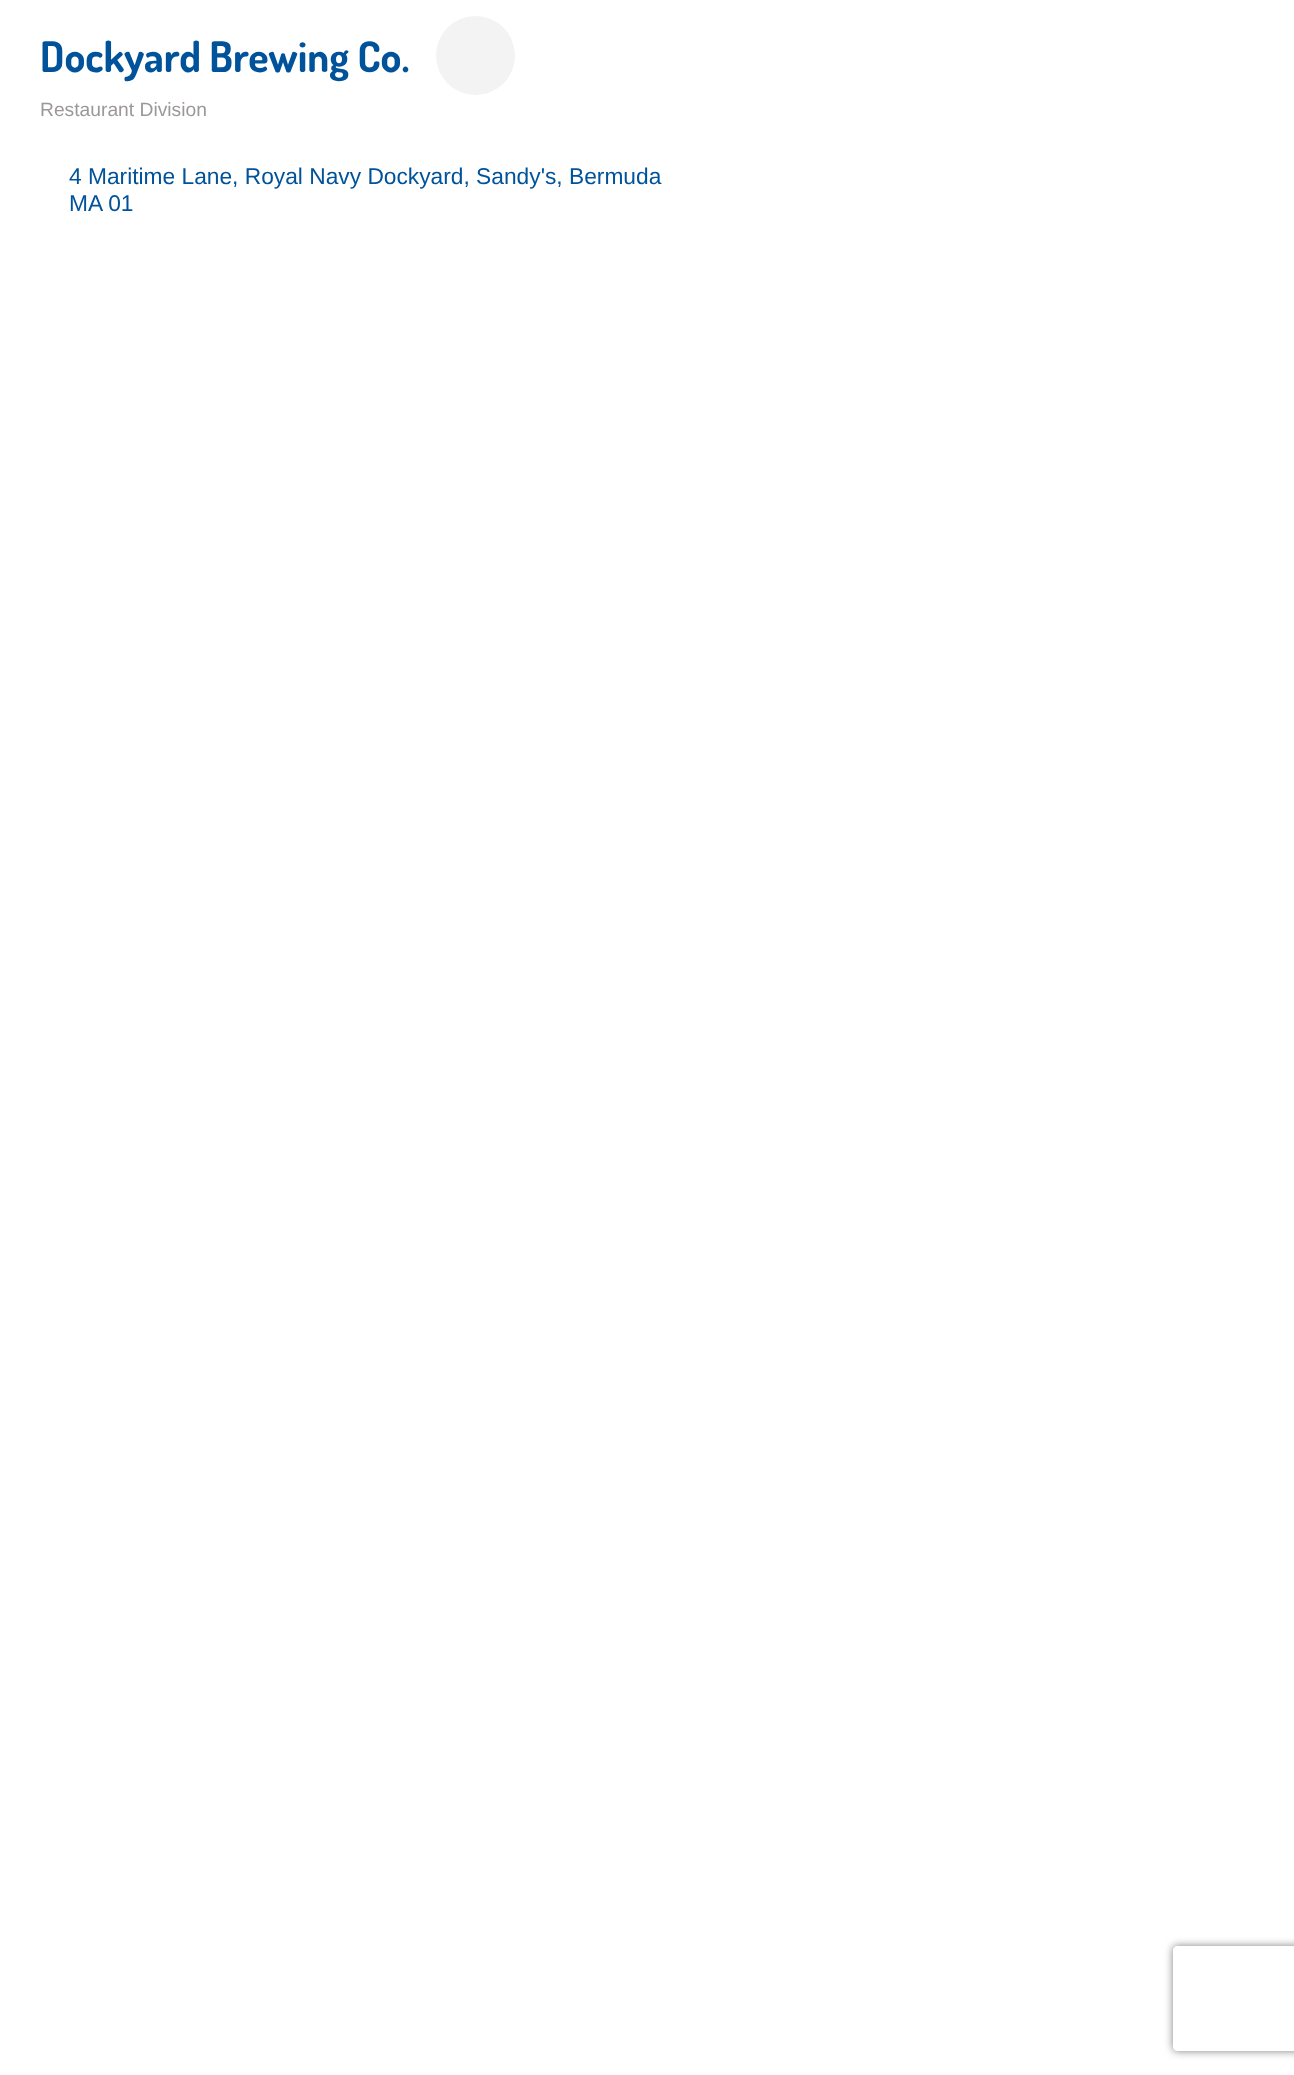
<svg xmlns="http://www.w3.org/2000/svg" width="1294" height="2075">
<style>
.a{font:bold 42px Dosis;fill:#00539a}
.b{font:19.25px Liberation Sans;fill:#9d9898}
.c{font:22.75px Liberation Sans;fill:#00539a}
</style>
<defs>
<clipPath id="clip1"><path d="M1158 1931h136v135h-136zm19 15h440c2 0 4 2 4 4v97c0 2-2 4-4 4h-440c-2 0-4-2-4-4v-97c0-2 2-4 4-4z" clip-rule="evenodd"/></clipPath>
</defs>
<rect width="100%" height="100%" fill="#fff"/>
<circle fill="#f3f3f3" cx="475.5" cy="55.5" r="39.5"/>
<g clip-path="url(#clip1)">
<rect fill="#808080" filter="blur(4.5px)" x="1173" y="1946" width="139" height="105" rx="4"/>
</g>
<text class="a" x="40" y="72">Dockyard Brewing Co.</text>
<text class="b" x="40" y="116">Restaurant Division</text>
<text class="c" x="69" y="184">4 Maritime Lane, Royal Navy Dockyard, Sandy's, Bermuda</text>
<text class="c" x="69" y="211">MA 01</text>
</svg>
